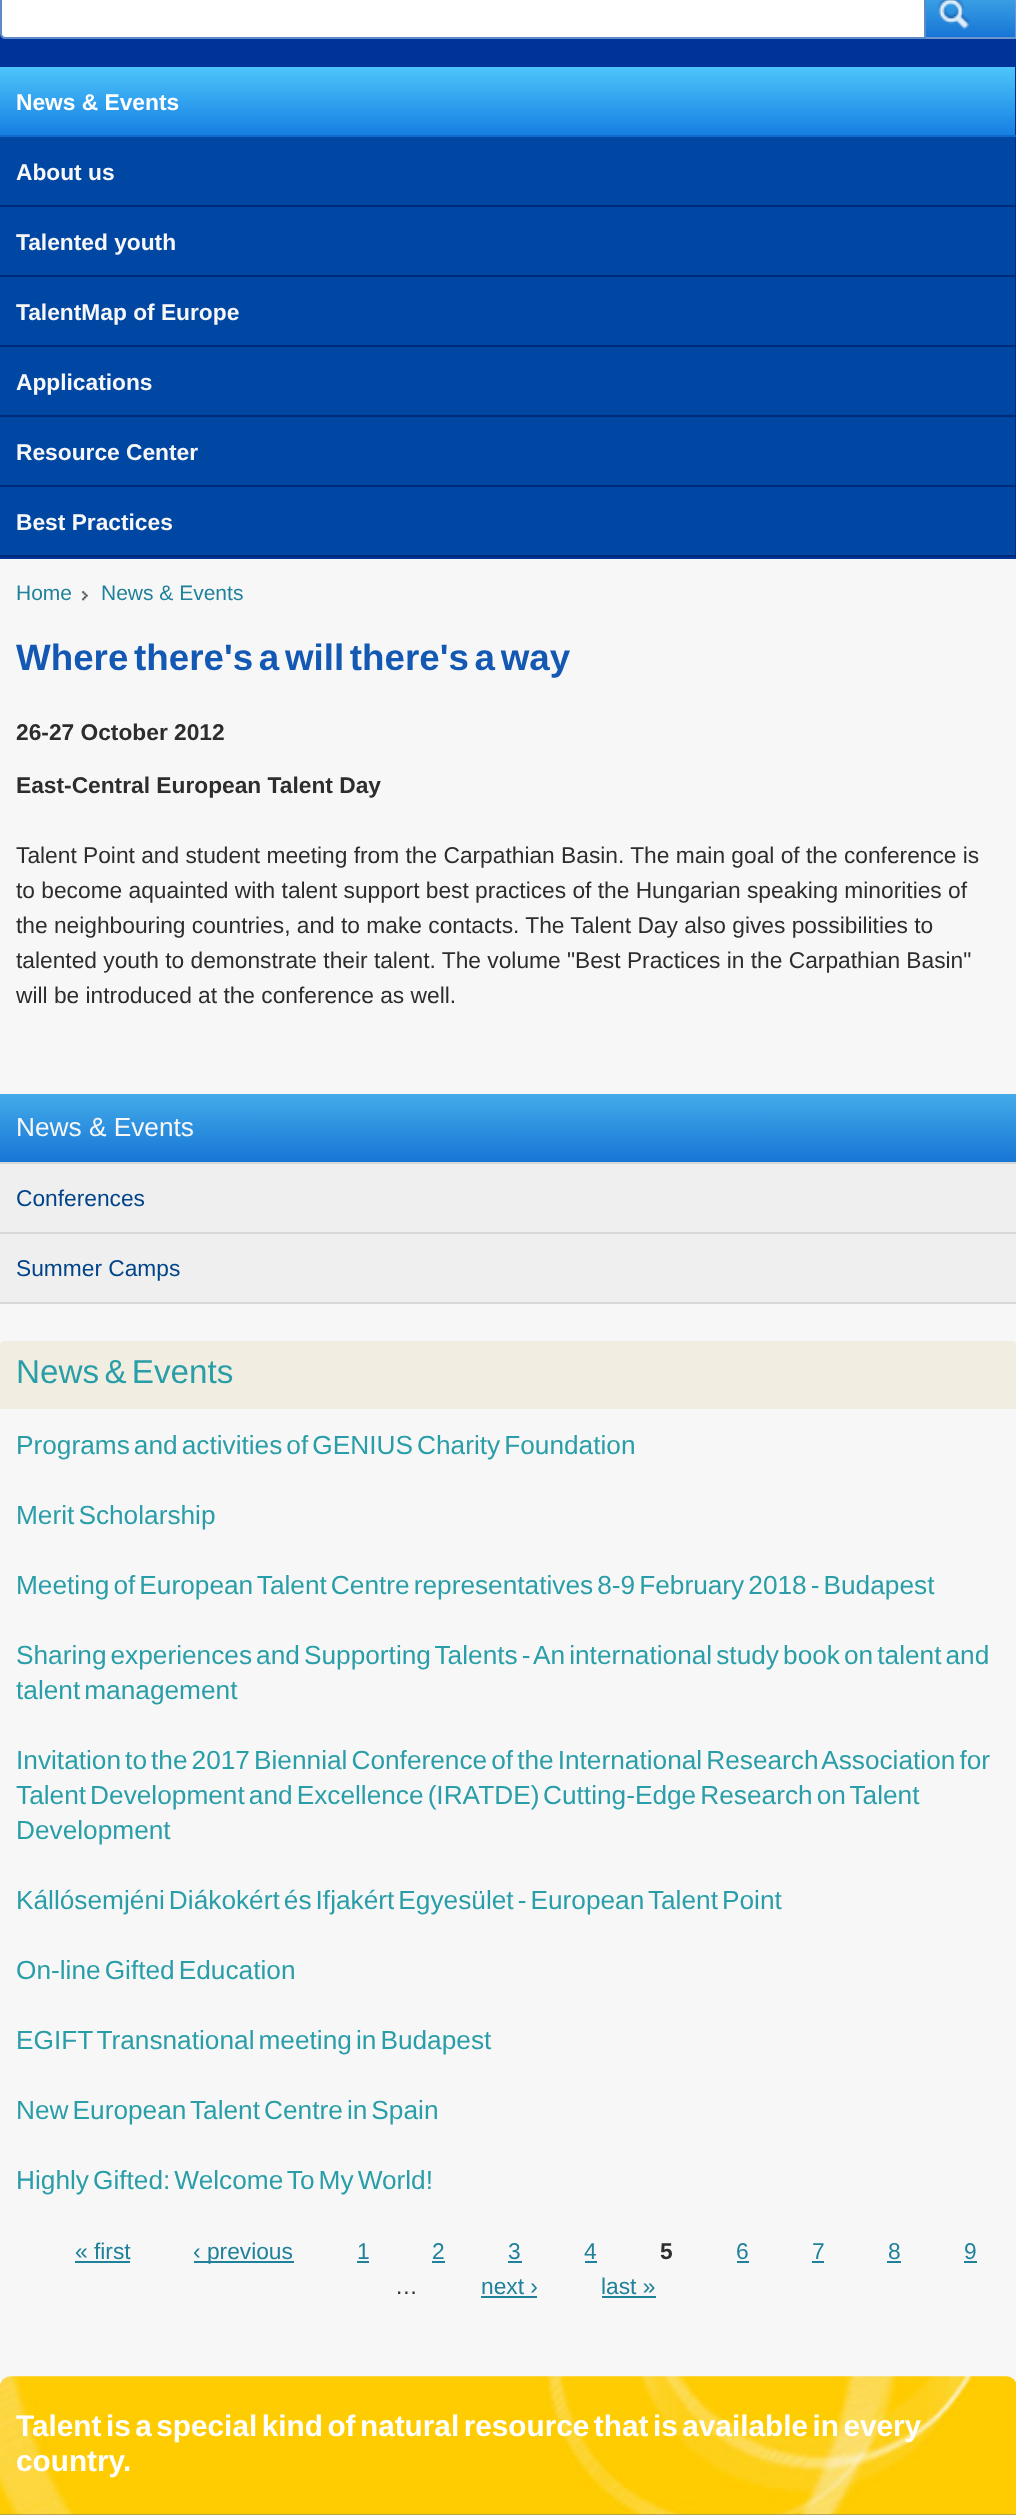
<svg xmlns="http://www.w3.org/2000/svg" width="1016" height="2515">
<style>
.a{font:bold 22.75px Liberation Sans;fill:#fff}
.b{font:bold 22.75px Liberation Sans;fill:#f7f7f7}
.c{font:21px Liberation Sans;fill:#20819b}
.d{font:bold 36.75px Liberation Sans;fill:#1358b2}
.e{font:bold 22.75px Liberation Sans;fill:#2d2d2d}
.f{font:22.75px Liberation Sans;fill:#2d2d2d}
.g{font:26.25px Liberation Sans;fill:#f7f7f7}
.h{font:22.75px Liberation Sans;fill:#01448a}
.i{font:33.25px Liberation Sans;fill:#2a9ea8}
.j{font:26.25px Liberation Sans;fill:#2a9ea8}
.k{font:22.75px Liberation Sans;fill:#20819b}
.l{font:bold 29.75px Liberation Sans;fill:#fff}
</style>
<defs>
<linearGradient id="g1" gradientUnits="userSpaceOnUse" x1="970" y1="-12" x2="970" y2="37"><stop offset="0" stop-color="#43ace9"/><stop offset="1" stop-color="#1775d5"/></linearGradient>
<linearGradient id="g2" gradientUnits="userSpaceOnUse" x1="508" y1="66" x2="508" y2="135"><stop offset="0" stop-color="#4ec6fb"/><stop offset="1" stop-color="#167fe2"/></linearGradient>
<linearGradient id="g3" gradientUnits="userSpaceOnUse" x1="508" y1="1094" x2="508" y2="1162"><stop offset="0" stop-color="#43ace9"/><stop offset="1" stop-color="#1775d5"/></linearGradient>
</defs>
<rect width="100%" height="100%" fill="#f7f7f7"/>
<path fill="#039" d="M0 34h1016v33H0z"/>
<path fill="#039" d="M0 557h1016v2H0z"/>
<path fill="#fff" stroke="#5c8bc9" stroke-width="2" d="M5-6h920v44h-920c-2 0-4-2-4-4v-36c0-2 2-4 4-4z"/>
<path fill="url(#g1)" d="M926 0h89v37H926z"/>
<path fill="#6c96ce" d="M1015 0h1v39H1015z"/>
<path fill="#6c96ce" d="M926 37h90v2H926z"/>
<image href="1.png" x="937" y="0" width="32" height="29"/>
<path fill="#0047a3" d="M0 137h1015v418H0z"/>
<path fill="url(#g2)" d="M0 67h1015v68H0z"/>
<path fill="#002e8a" d="M1015 67h1v490H1015z"/>
<path fill="#1069cc" d="M0 135h1016v2H0z"/>
<path fill="#00297a" d="M0 205h1016v2H0z"/>
<path fill="#00297a" d="M0 275h1016v2H0z"/>
<path fill="#00297a" d="M0 345h1016v2H0z"/>
<path fill="#00297a" d="M0 415h1016v2H0z"/>
<path fill="#00297a" d="M0 485h1016v2H0z"/>
<path fill="#00297a" d="M0 555h1016v2H0z"/>
<image href="2.png" x="81" y="590" width="7" height="11"/>
<path fill="#d7d7d7" d="M0 1162h1016v2H0z"/>
<path fill="url(#g3)" d="M0 1094h1016v68H0z"/>
<path fill="#d7d7d7" d="M0 1232h1016v2H0z"/>
<path fill="#efefef" d="M0 1164h1016v68H0z"/>
<path fill="#d7d7d7" d="M0 1302h1016v2H0z"/>
<path fill="#efefef" d="M0 1234h1016v68H0z"/>
<path fill="#f1eee1" d="M5 1341h1007c3 0 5 2 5 5v65h-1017v-65c0-3 2-5 5-5z"/>
<path fill="#f7f7f7" d="M0 1409h1016v2H0z"/>
<path fill="#20819b" d="M75 2261h55v2H75z"/>
<path fill="#20819b" d="M194 2261h100v2H194z"/>
<path fill="#20819b" d="M357 2261h12v2H357z"/>
<path fill="#20819b" d="M432 2261h13v2H432z"/>
<path fill="#20819b" d="M508 2261h14v2H508z"/>
<path fill="#20819b" d="M585 2261h12v2H585z"/>
<path fill="#20819b" d="M737 2261h12v2H737z"/>
<path fill="#20819b" d="M812 2261h12v2H812z"/>
<path fill="#20819b" d="M887 2261h14v2H887z"/>
<path fill="#20819b" d="M964 2261h13v2H964z"/>
<path fill="#20819b" d="M481 2296h56v2H481z"/>
<path fill="#20819b" d="M602 2296h54v2H602z"/>
<path fill="#fc0" d="M11 2377h995c6 0 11 5 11 11v127h-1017v-127c0-6 5-11 11-11z"/>
<image href="3.png" x="0" y="2376" width="1016" height="139"/>
<path fill="#727a8b80" d="M0 2514h1016v1H0z"/>
<text class="a" x="16" y="110">News &amp; Events</text>
<text class="b" x="16" y="180">About us</text>
<text class="b" x="16" y="250">Talented youth</text>
<text class="b" x="16" y="320">TalentMap of Europe</text>
<text class="b" x="16" y="390">Applications</text>
<text class="b" x="16" y="460">Resource Center</text>
<text class="b" x="16" y="530">Best Practices</text>
<text class="c" x="16" y="600">Home</text>
<text class="c" x="101" y="600">News &amp; Events</text>
<text class="d" x="16" y="670" word-spacing="-4.5">Where there's a will there's a way</text>
<text class="e" x="16" y="740">26-27 October 2012</text>
<text class="e" x="16" y="793">East-Central European Talent Day</text>
<text class="f" x="16" y="863">Talent Point and student meeting from the Carpathian Basin. The main goal of the conference is</text>
<text class="f" x="16" y="898">to become aquainted with talent support best practices of the Hungarian speaking minorities of</text>
<text class="f" x="16" y="933">the neighbouring countries, and to make contacts. The Talent Day also gives possibilities to</text>
<text class="f" x="16" y="968">talented youth to demonstrate their talent. The volume "Best Practices in the Carpathian Basin"</text>
<text class="f" x="16" y="1003">will be introduced at the conference as well.</text>
<text class="g" x="16" y="1136">News &amp; Events</text>
<text class="h" x="16" y="1206">Conferences</text>
<text class="h" x="16" y="1276">Summer Camps</text>
<text class="i" x="16" y="1383" word-spacing="-4">News &amp; Events</text>
<text class="j" x="16" y="1454" word-spacing="-3.25">Programs and activities of GENIUS Charity Foundation</text>
<text class="j" x="16" y="1524" word-spacing="-3.25">Merit Scholarship</text>
<text class="j" x="16" y="1594" word-spacing="-3.25">Meeting of European Talent Centre representatives 8-9 February 2018 - Budapest</text>
<text class="j" x="16" y="1664" word-spacing="-3.25">Sharing experiences and Supporting Talents - An international study book on talent and</text>
<text class="j" x="16" y="1699" word-spacing="-3.25">talent management</text>
<text class="j" x="16" y="1769" word-spacing="-3.25">Invitation to the 2017 Biennial Conference of the International Research Association for</text>
<text class="j" x="16" y="1804" word-spacing="-3.25">Talent Development and Excellence (IRATDE)</text>
<text class="j" x="543" y="1804" word-spacing="-3.25">Cutting-Edge Research on Talent</text>
<text class="j" x="16" y="1839">Development</text>
<text class="j" x="16" y="1909" word-spacing="-3.25">Kállósemjéni Diákokért és Ifjakért Egyesület - European Talent Point</text>
<text class="j" x="16" y="1979" word-spacing="-3.25">On-line Gifted Education</text>
<text class="j" x="16" y="2049" word-spacing="-3.25">EGIFT Transnational meeting in Budapest</text>
<text class="j" x="16" y="2119" word-spacing="-3.25">New European Talent Centre in Spain</text>
<text class="j" x="16" y="2189" word-spacing="-3.25">Highly Gifted: Welcome To My World!</text>
<text class="k" x="75" y="2259">« first</text>
<text class="k" x="193" y="2259">‹ previous</text>
<text class="k" x="357" y="2259">1</text>
<text class="k" x="432" y="2259">2</text>
<text class="k" x="508" y="2259">3</text>
<text class="k" x="584" y="2259">4</text>
<text class="e" x="660" y="2259">5</text>
<text class="k" x="736" y="2259">6</text>
<text class="k" x="812" y="2259">7</text>
<text class="k" x="888" y="2259">8</text>
<text class="k" x="964" y="2259">9</text>
<text class="f" x="395" y="2294">…</text>
<text class="k" x="481" y="2294">next ›</text>
<text class="k" x="601" y="2294">last »</text>
<text class="l" x="16" y="2436" word-spacing="-3.75">Talent is a special kind of natural resource that is available in every</text>
<text class="l" x="16" y="2471">country.</text>
</svg>
